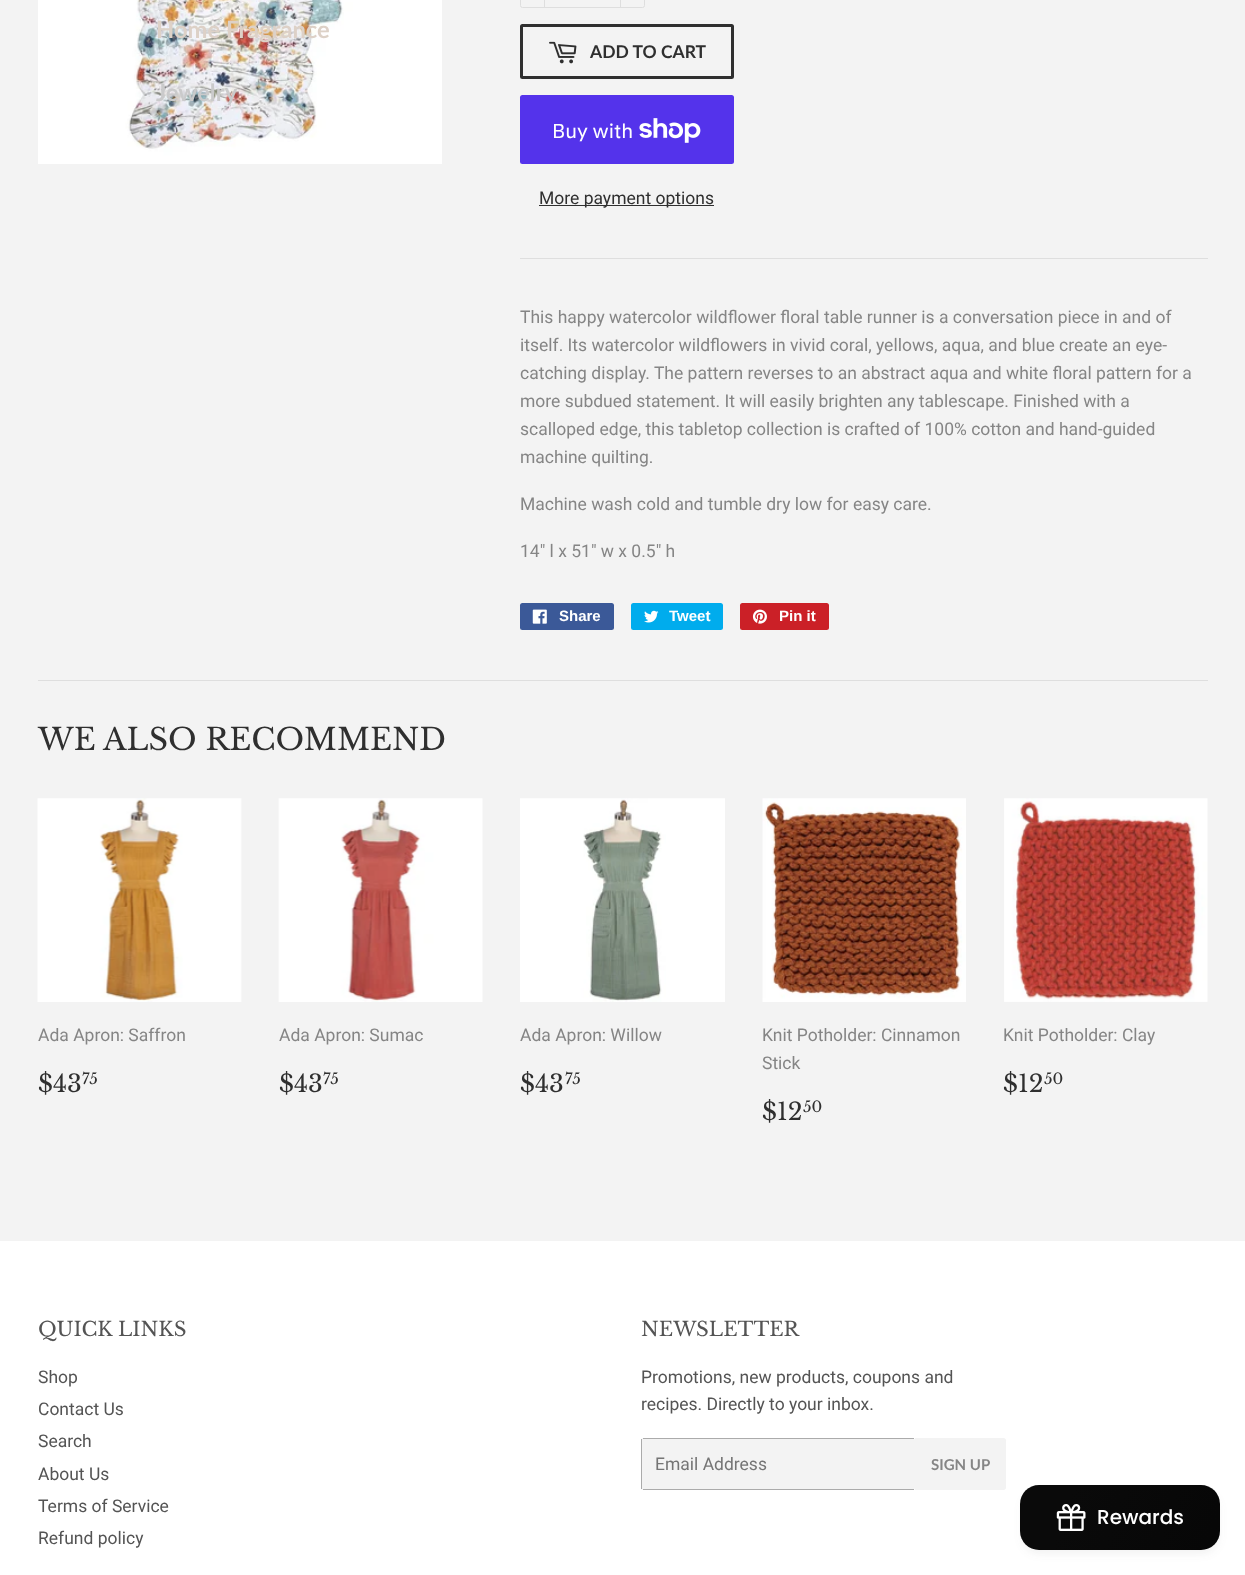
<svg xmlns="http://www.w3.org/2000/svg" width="1245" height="1575">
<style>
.a{font:bold 23.75px Lato;fill:#ddd1c7}
.b{font:bold 23.75px Lato;fill:#cacacb}
.c{font:bold 17.5px Lato;fill:#2f2f2f}
.d{font:20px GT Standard;fill:#fff}
.e{font:17.5px Roboto;fill:#2f2f2f}
.f{font:17.5px Roboto;fill:#858585}
.g{font:bold 15px Liberation Sans;fill:#fff}
.h{font:30.3px Libre Baskerville;fill:#2f2f2f}
.i{font:24px Libre Baskerville;fill:#2f2f2f}
.j{font:15px Libre Baskerville;fill:#2f2f2f}
.k{font:19.75px Libre Baskerville;fill:#545454}
.l{font:17.5px Roboto;fill:#545454}
.m{font:17.5px Roboto;fill:#757575}
.n{font:bold 15px Lato;fill:#858585}
.o{font:500 20px Poppins;fill:#fff}
</style>
<defs>
<linearGradient id="g1" gradientUnits="userSpaceOnUse" x1="1021" y1="1482" x2="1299" y2="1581"><stop offset="0.17" stop-color="#0a0a0a"/><stop offset="1" stop-color="#050505"/></linearGradient>
</defs>
<rect width="100%" height="100%" fill="#f3f3f3"/>
<image href="1.png" x="38" y="0" width="404" height="164"/>
<rect fill="none" stroke="#dedede" x="520.5" y="-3.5" width="124" height="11" rx="2"/>
<path fill="#dedede" d="M544 0h1v8H544z"/>
<path fill="#dedede" d="M620 0h1v8H620z"/>
<rect fill="none" stroke="#2f2f2f" stroke-width="3" x="521.5" y="25.5" width="211" height="52" rx="1"/>
<image href="2.png" x="549" y="41" width="28" height="23"/>
<rect fill="#5433eb" x="520" y="95" width="214" height="69" rx="2.5"/>
<image href="3.png" x="639" y="118" width="62" height="25"/>
<path fill="#2f2f2f" d="M539 205h175v1H539z"/>
<path fill="#dedede" d="M520 258h688v1H520z"/>
<rect fill="#3b5998" x="520" y="603" width="94" height="27" rx="2.5"/>
<image href="4.png" x="532" y="609" width="15" height="15"/>
<rect fill="#00aced" x="631" y="603" width="92" height="27" rx="2.5"/>
<image href="5.png" x="644" y="610" width="15" height="13"/>
<rect fill="#cb2027" x="740" y="603" width="89" height="27" rx="2.5"/>
<image href="6.png" x="752" y="609" width="15" height="15"/>
<path fill="#dedede" d="M38 680h1170v1H38z"/>
<image href="7.png" x="37" y="798" width="205" height="204"/>
<image href="8.png" x="278" y="798" width="205" height="204"/>
<image href="9.png" x="520" y="798" width="205" height="204"/>
<image href="10.png" x="762" y="798" width="204" height="204"/>
<image href="11.png" x="1004" y="798" width="204" height="204"/>
<path fill="#fff" d="M0 1241h1245v334H0z"/>
<rect fill="#f3f3f3" x="641" y="1438" width="274" height="52" rx="2.5"/>
<path fill="#ababab" d="M643 1438h271v1H643z"/>
<path fill="#ababab" d="M643 1489h271v1H643z"/>
<path fill="#ababab" d="M641 1439h1v50H641z"/>
<path fill="#f3f3f3" d="M915 1438h88.5c1.5 0 2.5 1 2.5 2.5v47c0 1.5-1 2.5-2.5 2.5h-88.5z"/>
<rect fill="#44444414" filter="blur(5px)" x="1023" y="1493" width="195" height="60" rx="16"/>
<rect fill="url(#g1)" x="1020" y="1485" width="200" height="65" rx="19"/>
<image href="12.png" x="1056" y="1504" width="30" height="27"/>
<text class="a" x="156" y="38">Home Fragrance</text>
<text class="b" x="156" y="101">Jewelry</text>
<text class="c" x="590" y="58">ADD TO CART</text>
<text class="d" x="552" y="138">Buy with</text>
<text class="e" x="539" y="204">More payment options</text>
<text class="f" x="520" y="323">This happy watercolor wildflower floral table runner is a conversation piece in and of</text>
<text class="f" x="520" y="351">itself. Its watercolor wildflowers in vivid coral, yellows, aqua, and blue create an eye-</text>
<text class="f" x="520" y="379">catching display. The pattern reverses to an abstract aqua and white floral pattern for a</text>
<text class="f" x="520" y="407">more subdued statement. It will easily brighten any tablescape. Finished with a</text>
<text class="f" x="520" y="435">scalloped edge, this tabletop collection is crafted of 100% cotton and hand-guided</text>
<text class="f" x="520" y="463">machine quilting.</text>
<text class="f" x="520" y="510">Machine wash cold and tumble dry low for easy care.</text>
<text class="f" x="520" y="557">14" l x 51" w x 0.5" h</text>
<text class="g" x="559" y="621">Share</text>
<text class="g" x="669" y="621">Tweet</text>
<text class="g" x="779" y="621">Pin it</text>
<text class="h" x="38" y="750">WE ALSO RECOMMEND</text>
<text class="f" x="38" y="1041">Ada Apron: Saffron</text>
<text class="i" x="38" y="1092">$43</text>
<text class="j" x="82" y="1084">75</text>
<text class="f" x="279" y="1041">Ada Apron: Sumac</text>
<text class="i" x="279" y="1092">$43</text>
<text class="j" x="323" y="1084">75</text>
<text class="f" x="520" y="1041">Ada Apron: Willow</text>
<text class="i" x="520" y="1092">$43</text>
<text class="j" x="565" y="1084">75</text>
<text class="f" x="762" y="1041">Knit Potholder: Cinnamon</text>
<text class="f" x="762" y="1069">Stick</text>
<text class="i" x="762" y="1120">$12</text>
<text class="j" x="803" y="1112">50</text>
<text class="f" x="1003" y="1041">Knit Potholder: Clay</text>
<text class="i" x="1003" y="1092">$12</text>
<text class="j" x="1044" y="1084">50</text>
<text class="k" x="38" y="1336">QUICK LINKS</text>
<text class="l" x="38" y="1383">Shop</text>
<text class="l" x="38" y="1415">Contact Us</text>
<text class="l" x="38" y="1447">Search</text>
<text class="l" x="38" y="1480">About Us</text>
<text class="l" x="38" y="1512">Terms of Service</text>
<text class="l" x="38" y="1544">Refund policy</text>
<text class="k" x="641" y="1336">NEWSLETTER</text>
<text class="l" x="641" y="1383">Promotions, new products, coupons and</text>
<text class="l" x="641" y="1410">recipes. Directly to your inbox.</text>
<text class="m" x="655" y="1470">Email Address</text>
<text class="n" x="931" y="1470">SIGN UP</text>
<text class="o" x="1097" y="1524">Rewards</text>
</svg>
